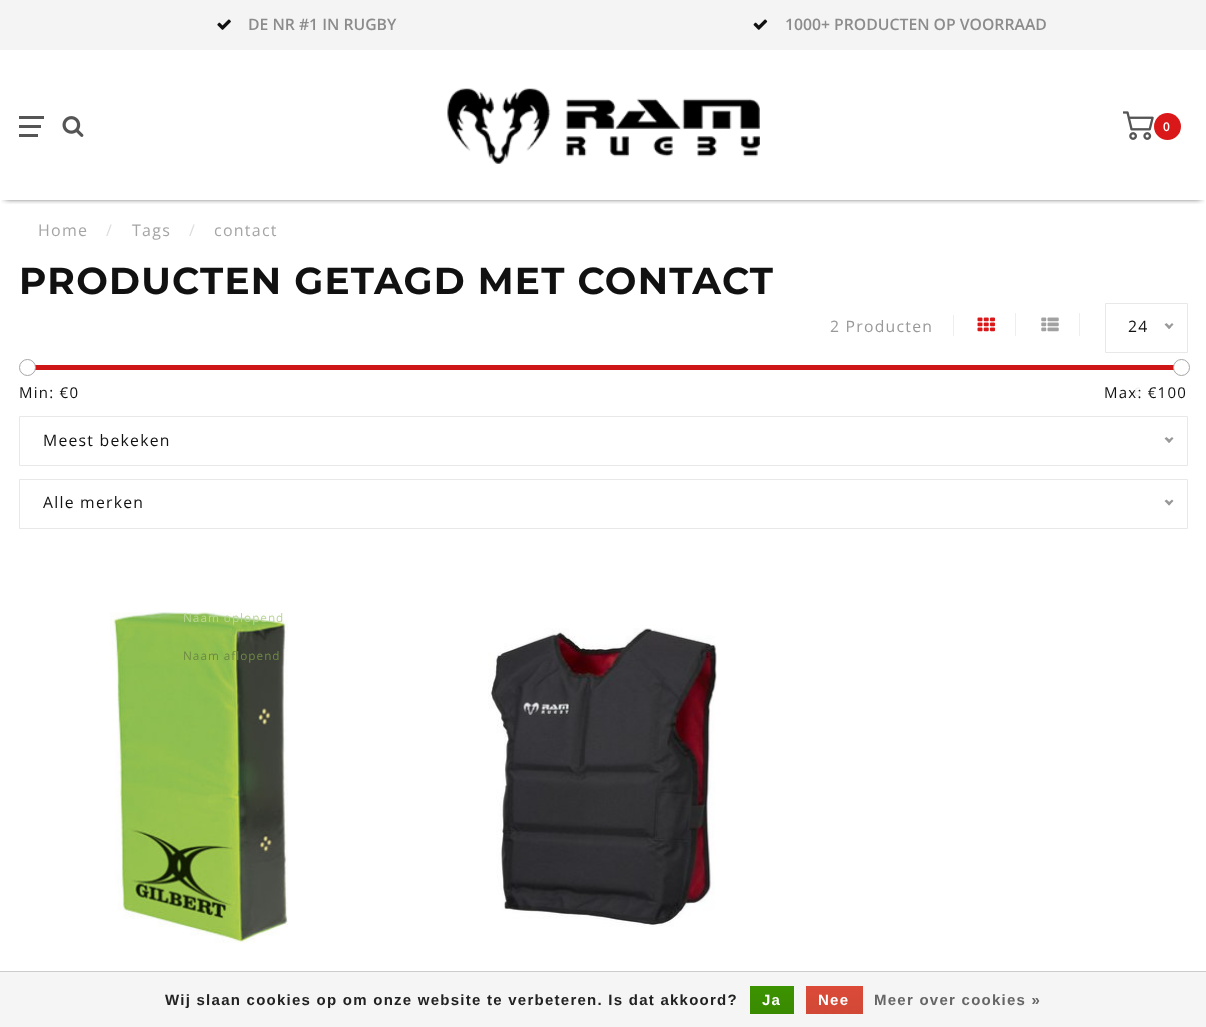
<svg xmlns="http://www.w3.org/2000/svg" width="1206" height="1027">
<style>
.a{font:600 15.75px Open Sans;fill:#8c8c8c}
.b{font:600 12px Open Sans;letter-spacing:1.25px;fill:#fff}
.c{font:16px Open Sans;letter-spacing:1.25px;fill:#a5a5a5}
.d{font:16px Open Sans;letter-spacing:1.25px;fill:#ddd}
.e{font:bold 37.5px Montserrat;letter-spacing:1.25px;fill:#111}
.f{font:15.75px Open Sans;letter-spacing:1.25px;fill:#999}
.g{font:15.75px Open Sans;letter-spacing:1.25px;fill:#111}
.h{font:15px Open Sans;letter-spacing:1.25px;fill:#111}
.i{font:11.75px Open Sans;letter-spacing:1px;fill:#ebebeb}
.j{font:11.75px Open Sans;letter-spacing:1px;fill:#b8d694}
.k{font:11.75px Open Sans;letter-spacing:1px;fill:#6e8944}
.l{font:bold 15px Liberation Sans;letter-spacing:1.25px;fill:#222}
.m{font:bold 15px Liberation Sans;letter-spacing:1.25px;fill:#fff}
.n{font:bold 15px Liberation Sans;letter-spacing:1.25px;fill:#666}
</style>
<defs>
<clipPath id="clip1"><path d="M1 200h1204v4H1z"/></clipPath>
<linearGradient id="g1" gradientUnits="userSpaceOnUse" x1="772" y1="986" x2="772" y2="1014"><stop offset="0" stop-color="#3c9300"/><stop offset="1" stop-color="#398a00"/></linearGradient>
<linearGradient id="g2" gradientUnits="userSpaceOnUse" x1="834" y1="986" x2="834" y2="1014"><stop offset="0" stop-color="#dc4a38"/><stop offset="1" stop-color="#d14836"/></linearGradient>
</defs>
<rect width="100%" height="100%" fill="#fff"/>
<path fill="#f4f4f4" d="M0 0h1206v50H0z"/>
<image href="1.png" x="217" y="19" width="14" height="11"/>
<image href="2.png" x="753" y="19" width="15" height="11"/>
<g clip-path="url(#clip1)">
<path fill="#000" filter="blur(3px)" d="M5 58h1196v140H5z"/>
</g>
<path fill="#555" d="M19 116h25v3H19z"/>
<path fill="#555" d="M19 125h22v3H19z"/>
<path fill="#555" d="M19 134h19v3H19z"/>
<image href="3.png" x="62" y="116" width="22" height="21"/>
<image href="4.png" x="447" y="88" width="313" height="76"/>
<image href="5.png" x="1123" y="111" width="31" height="29"/>
<circle fill="#da1819" cx="1167.5" cy="126.5" r="13.5"/>
<path fill="#eee" d="M953 315h1v21H953z"/>
<path fill="#eee" d="M1015 313h1v23H1015z"/>
<image href="6.png" x="977" y="317" width="18" height="15"/>
<path fill="#eee" d="M1079 313h1v23H1079z"/>
<image href="7.png" x="1041" y="317" width="18" height="15"/>
<path fill="none" stroke="#e8e8e8" d="M1105.5 303.5h82v49H1105.5z"/>
<path fill="#999" d="M1172 323l1.5 1.5l-4.5 4.5l-1.5-1.5z"/>
<path fill="#999" d="M1166.5 323l4.5 4.5l-2 1.5l-4.5-4.5z"/>
<path fill="#cf1617" d="M31 365h1143v5H31z"/>
<circle fill="#fff" stroke="#a5a5a5" cx="27.5" cy="367.5" r="8"/>
<circle fill="#fff" stroke="#a5a5a5" cx="1181.5" cy="367.5" r="8"/>
<path fill="none" stroke="#e8e8e8" d="M19.5 416.5h1168v49H19.5z"/>
<path fill="#999" d="M1172 437l1.5 1.5l-4.5 4.5l-1.5-2z"/>
<path fill="#999" d="M1166.5 437l4.5 4l-2 2l-4.5-4.5z"/>
<path fill="none" stroke="#e8e8e8" d="M19.5 479.5h1168v49H19.5z"/>
<path fill="#999" d="M1172 499.5l1.5 1.5l-4.5 4.5l-1.5-2z"/>
<path fill="#999" d="M1166.5 499.5l4.5 4l-2 2l-4.5-4.5z"/>
<image href="8.png" x="110" y="612" width="178" height="331"/>
<image href="9.png" x="488" y="628" width="229" height="299"/>
<path fill="#f5f5f5" d="M0 972h1206v55H0z"/>
<path fill="#ccc" d="M0 971h1206v1H0z"/>
<path fill="url(#g1)" d="M750 986h44v28H750z"/>
<path fill="url(#g2)" d="M806 986h57v28H806z"/>
<text class="a" x="248" y="30">DE NR #1 IN RUGBY</text>
<text class="a" x="785" y="30">1000+ PRODUCTEN OP VOORRAAD</text>
<text class="b" x="1163" y="131">0</text>
<text class="c" x="38" y="236">Home</text>
<text class="d" x="106" y="236">/</text>
<text class="c" x="132" y="236">Tags</text>
<text class="d" x="189" y="236">/</text>
<text class="c" x="214" y="236">contact</text>
<text class="e" x="19" y="294">PRODUCTEN GETAGD MET CONTACT</text>
<text class="f" x="830" y="332">2 Producten</text>
<text class="g" x="1128" y="332">24</text>
<text class="h" x="19" y="398">Min: €0</text>
<text class="h" x="1104" y="398">Max: €100</text>
<text class="i" x="1134" y="396">6</text>
<text class="g" x="43" y="446">Meest bekeken</text>
<text class="j" x="183" y="622">Naam oplopend</text>
<text class="k" x="183" y="660">Naam aflopend</text>
<text class="g" x="43" y="508">Alle merken</text>
<text class="l" x="165" y="1005">Wij slaan cookies op om onze website te verbeteren. Is dat akkoord?</text>
<text class="m" x="762" y="1005">Ja</text>
<text class="m" x="818" y="1005">Nee</text>
<text class="n" x="874" y="1005">Meer over cookies »</text>
</svg>
